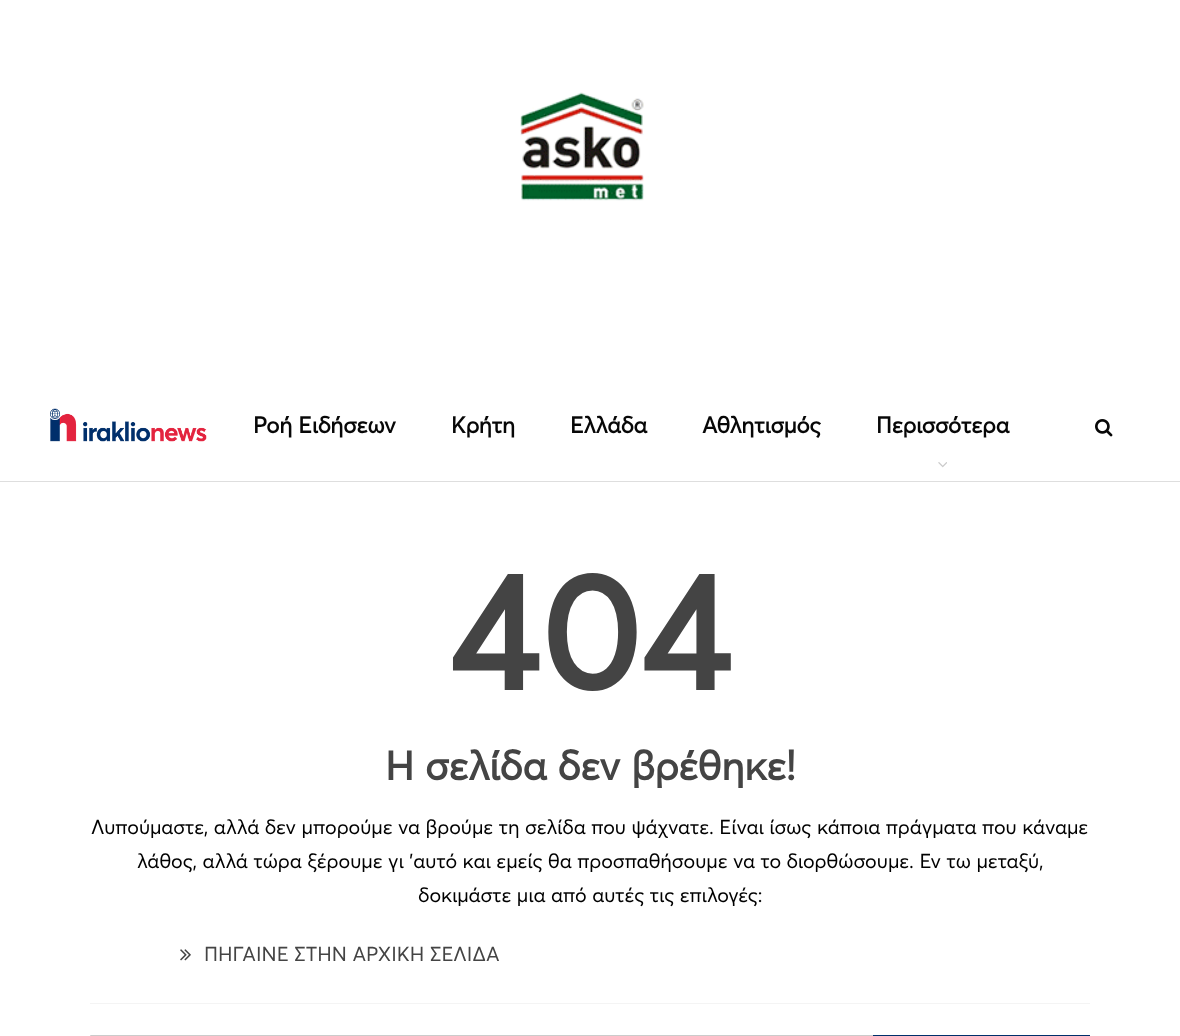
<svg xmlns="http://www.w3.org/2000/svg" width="1180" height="1036">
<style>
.a{font:bold 22.5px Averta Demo;fill:#070707}
.b{font:bold 162px Averta Demo;fill:#444}
.c{font:bold 40px Averta Demo;fill:#444}
.d{font:20px Averta Demo;fill:#000}
.e{font:20px Averta Demo;fill:#444}
</style>
<rect width="100%" height="100%" fill="#fff"/>
<image href="1.png" x="520" y="92" width="129" height="109"/>
<path fill="#dedede" d="M0 481h1180v1H0z"/>
<image href="2.png" x="50" y="408" width="157" height="34"/>
<image href="3.png" x="938" y="462" width="9" height="6"/>
<image href="4.png" x="1095" y="419" width="18" height="18"/>
<image href="5.png" x="180" y="949" width="11" height="12"/>
<path fill="#f4f4f4" d="M90 1003h1000v1H90z"/>
<path fill="none" stroke="#cbcbcb" d="M90.5 1035.5h999v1H90.5z"/>
<path fill="#002f6b" d="M873 1035h217v1H873z"/>
<text class="a" x="253" y="433">Ροή Ειδήσεων</text>
<text class="a" x="451" y="433">Κρήτη</text>
<text class="a" x="570" y="433">Ελλάδα</text>
<text class="a" x="702" y="433">Αθλητισμός</text>
<text class="a" x="876" y="433">Περισσότερα</text>
<text class="b" x="448" y="690">404</text>
<text class="c" x="385" y="780">Η σελίδα δεν βρέθηκε!</text>
<text class="d" x="91" y="834">Λυπούμαστε, αλλά δεν μπορούμε να βρούμε τη σελίδα που ψάχνατε. Είναι ίσως κάποια πράγματα που κάναμε</text>
<text class="d" x="137" y="868">λάθος, αλλά τώρα ξέρουμε γι 'αυτό και εμείς θα προσπαθήσουμε να το διορθώσουμε. Εν τω μεταξύ,</text>
<text class="d" x="418" y="902">δοκιμάστε μια από αυτές τις επιλογές:</text>
<text class="e" x="204" y="961">ΠΗΓΑΙΝΕ ΣΤΗΝ ΑΡΧΙΚΗ ΣΕΛΙΔΑ</text>
</svg>
